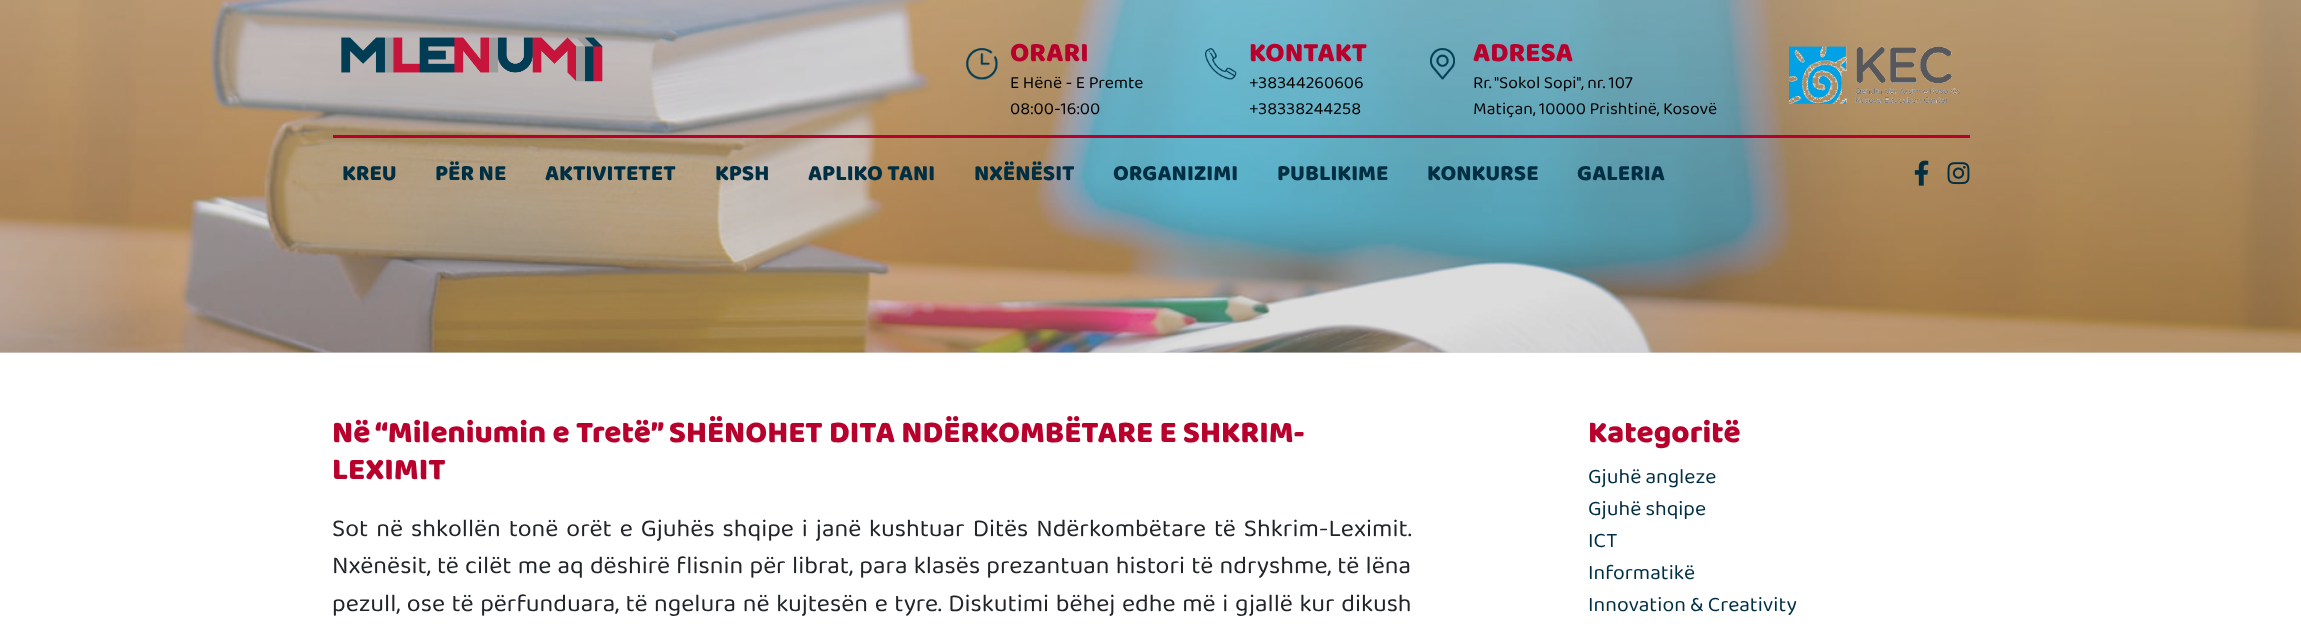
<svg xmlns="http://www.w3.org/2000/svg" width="2301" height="639">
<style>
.a{font:800 27.5px 'Baloo 2';fill:#b8002c}
.b{font:17.5px 'Baloo 2';fill:#000}
.c{font:800 22.5px 'Baloo 2';fill:#002e43}
.d{font:800 31.25px 'Baloo 2';fill:#b8002c}
.e{font:25px 'Baloo 2';fill:#212529}
.f{font:21.25px 'Baloo 2';fill:#002e43}
</style>
<rect width="100%" height="100%" fill="#fff"/>
<path fill="#dddcdc" d="M0 352h2301v1H0z"/>
<image href="1.png" x="0" y="0" width="2301" height="353"/>
<image href="2.png" x="341" y="37" width="262" height="45"/>
<image href="3.png" x="966" y="48" width="32" height="32"/>
<image href="4.png" x="1205" y="48" width="32" height="32"/>
<image href="5.png" x="1430" y="48" width="25" height="32"/>
<image href="6.png" x="1789" y="46" width="172" height="58"/>
<path fill="#b8002c" d="M333 135h1637v3H333z"/>
<image href="7.png" x="1914" y="160" width="15" height="26"/>
<image href="8.png" x="1947" y="162" width="23" height="23"/>
<text class="a" x="1010" y="61">ORARI</text>
<text class="b" x="1010" y="88">E Hënë - E Premte</text>
<text class="b" x="1010" y="114">08:00-16:00</text>
<text class="a" x="1249" y="61">KONTAKT</text>
<text class="b" x="1249" y="88">+38344260606</text>
<text class="b" x="1249" y="114">+38338244258</text>
<text class="a" x="1473" y="61">ADRESA</text>
<text class="b" x="1473" y="88">Rr. "Sokol Sopi", nr. 107</text>
<text class="b" x="1473" y="114">Matiçan, 10000 Prishtinë, Kosovë</text>
<text class="c" x="342" y="180">KREU</text>
<text class="c" x="435" y="180">PËR NE</text>
<text class="c" x="545" y="180">AKTIVITETET</text>
<text class="c" x="715" y="180">KPSH</text>
<text class="c" x="808" y="180">APLIKO TANI</text>
<text class="c" x="974" y="180">NXËNËSIT</text>
<text class="c" x="1113" y="180">ORGANIZIMI</text>
<text class="c" x="1277" y="180">PUBLIKIME</text>
<text class="c" x="1427" y="180">KONKURSE</text>
<text class="c" x="1577" y="180">GALERIA</text>
<text class="d" x="332" y="442">Në “Mileniumin e Tretë” SHËNOHET DITA NDËRKOMBËTARE E SHKRIM-</text>
<text class="d" x="332" y="479">LEXIMIT</text>
<text class="e" x="332" y="536" word-spacing="3">Sot në shkollën tonë orët e Gjuhës shqipe i janë kushtuar Ditës Ndërkombëtare të Shkrim-Leximit.</text>
<text class="e" x="332" y="573" word-spacing="1.3">Nxënësit, të cilët me aq dëshirë flisnin për librat, para klasës prezantuan histori të ndryshme, të lëna</text>
<text class="e" x="332" y="611" word-spacing="1.7">pezull, ose të përfunduara, të ngelura në kujtesën e tyre. Diskutimi bëhej edhe më i gjallë kur dikush</text>
<text class="d" x="1588" y="442">Kategoritë</text>
<text class="f" x="1588" y="483">Gjuhë angleze</text>
<text class="f" x="1588" y="515">Gjuhë shqipe</text>
<text class="f" x="1588" y="547">ICT</text>
<text class="f" x="1588" y="579">Informatikë</text>
<text class="f" x="1588" y="611">Innovation &amp; Creativity</text>
</svg>
